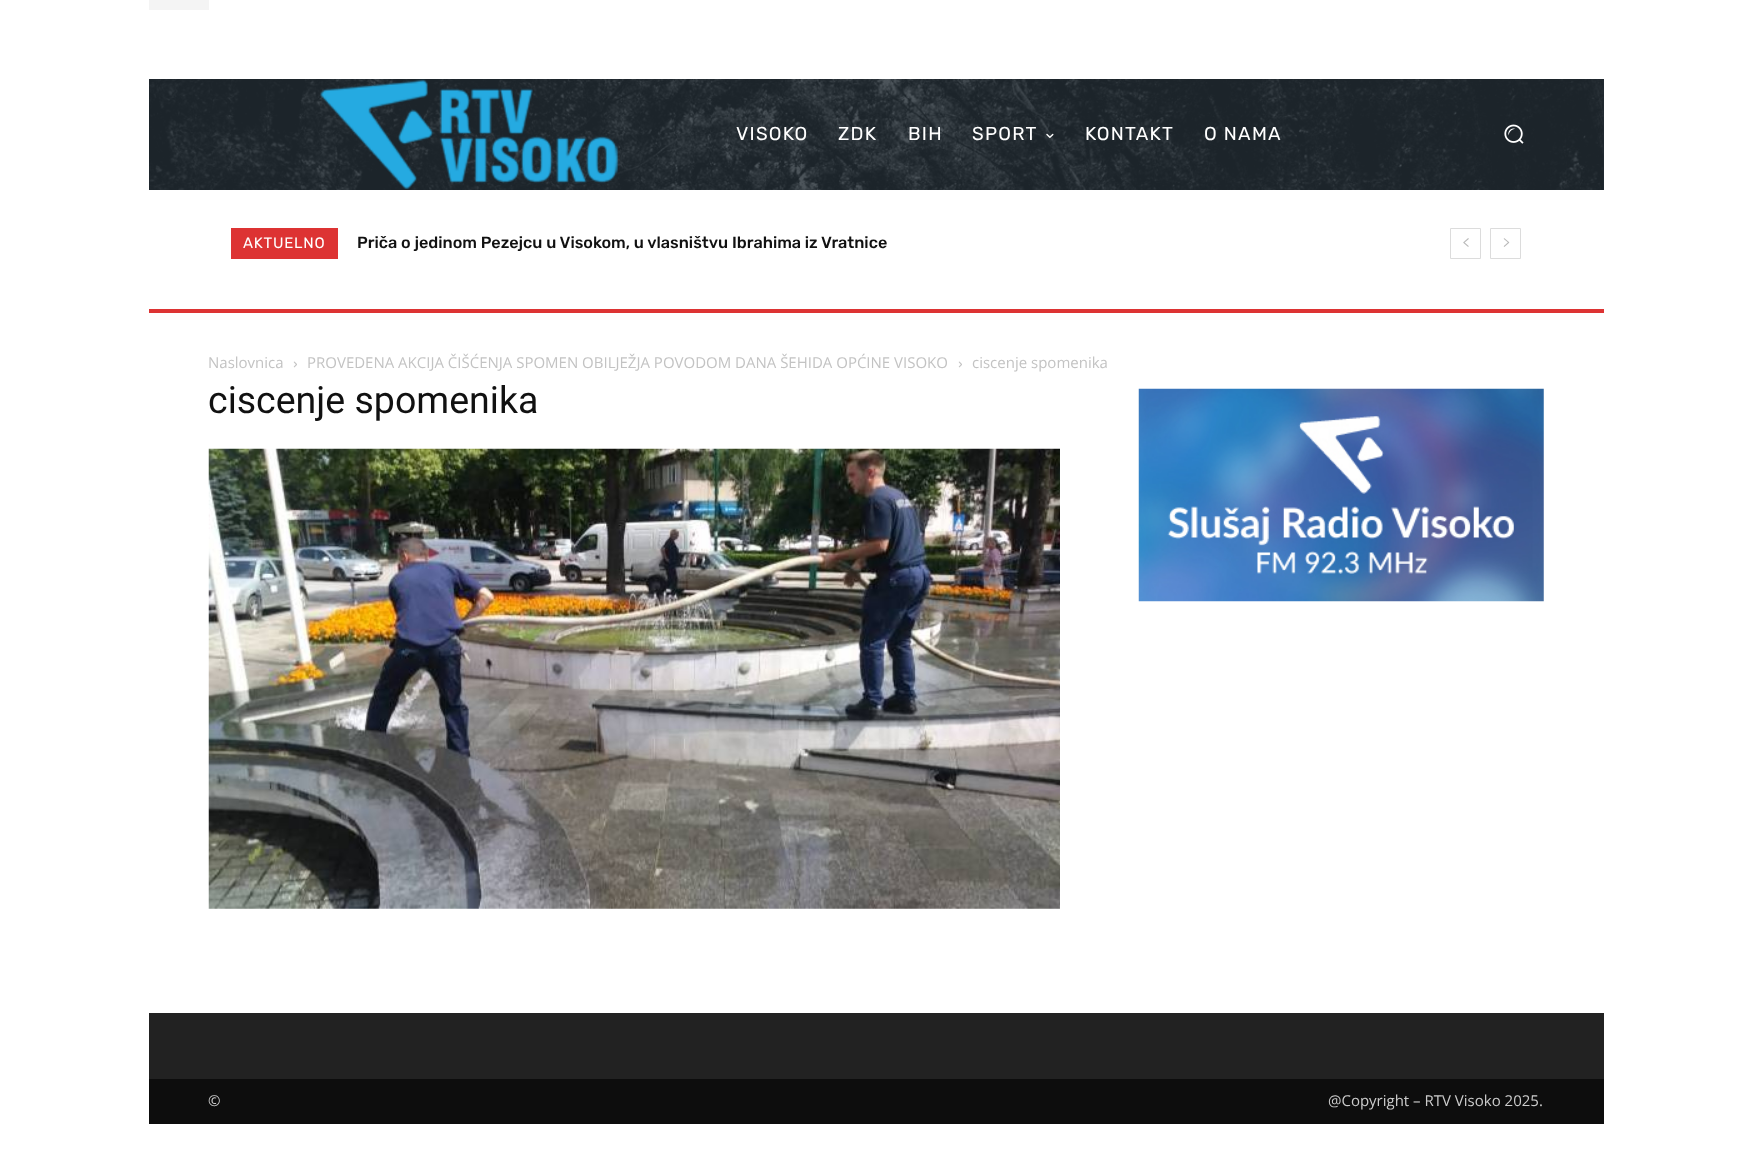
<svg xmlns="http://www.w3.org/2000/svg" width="1751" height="1173">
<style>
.a{font:18.75px Rubik;letter-spacing:1.25px;fill:#fff}
.b{font:15px Rubik;letter-spacing:0.75px;fill:#fff}
.c{font:500 16.25px Rubik;fill:#111}
.d{font:15px Open Sans;fill:#c3c3c3}
.e{font:37.5px Roboto;fill:#111}
.f{font:15px Open Sans;fill:#ccc}
</style>
<rect width="100%" height="100%" fill="#fff"/>
<path fill="#f4f4f4" d="M149 0h60v10H149z"/>
<path fill="#232d35" d="M149 79h1455v111H149z"/>
<image href="1.png" x="149" y="79" width="1455" height="111"/>
<image href="2.png" x="320" y="79" width="299" height="111"/>
<image href="3.png" x="1046" y="133" width="8" height="5"/>
<image href="4.png" x="1504" y="124" width="20" height="20"/>
<path fill="#d33" d="M231 228h107v31H231z"/>
<path fill="none" stroke="#dcdcdc" d="M1450.5 228.5h30v30H1450.5z"/>
<image href="5.png" x="1463" y="238" width="6" height="9"/>
<path fill="none" stroke="#dcdcdc" d="M1490.5 228.5h30v30H1490.5z"/>
<image href="6.png" x="1503" y="238" width="7" height="9"/>
<path fill="#d33" d="M149 309h1455v4H149z"/>
<image href="7.png" x="293" y="361" width="4" height="7"/>
<image href="7.png" x="958" y="361" width="4" height="7"/>
<image href="8.png" x="208" y="448" width="852" height="461"/>
<image href="9.png" x="1138" y="388" width="406" height="214"/>
<path fill="#222" d="M149 1013h1455v66H149z"/>
<path fill="#0d0d0d" d="M149 1079h1455v45H149z"/>
<text class="a" x="736" y="140">VISOKO</text>
<text class="a" x="838" y="140">ZDK</text>
<text class="a" x="908" y="140">BIH</text>
<text class="a" x="972" y="140">SPORT</text>
<text class="a" x="1085" y="140">KONTAKT</text>
<text class="a" x="1204" y="140">O NAMA</text>
<text class="b" x="243" y="248">AKTUELNO</text>
<text class="c" x="357" y="248">Priča o jedinom Pezejcu u Visokom, u vlasništvu Ibrahima iz Vratnice</text>
<text class="d" x="208" y="368">Naslovnica</text>
<text class="d" x="307" y="368">PROVEDENA AKCIJA ČIŠĆENJA SPOMEN OBILJEŽJA POVODOM DANA ŠEHIDA OPĆINE VISOKO</text>
<text class="d" x="972" y="368">ciscenje spomenika</text>
<text class="e" x="208" y="413">ciscenje spomenika</text>
<text class="f" x="208" y="1106">©</text>
<text class="f" x="1328" y="1106">@Copyright – RTV Visoko 2025.</text>
</svg>
